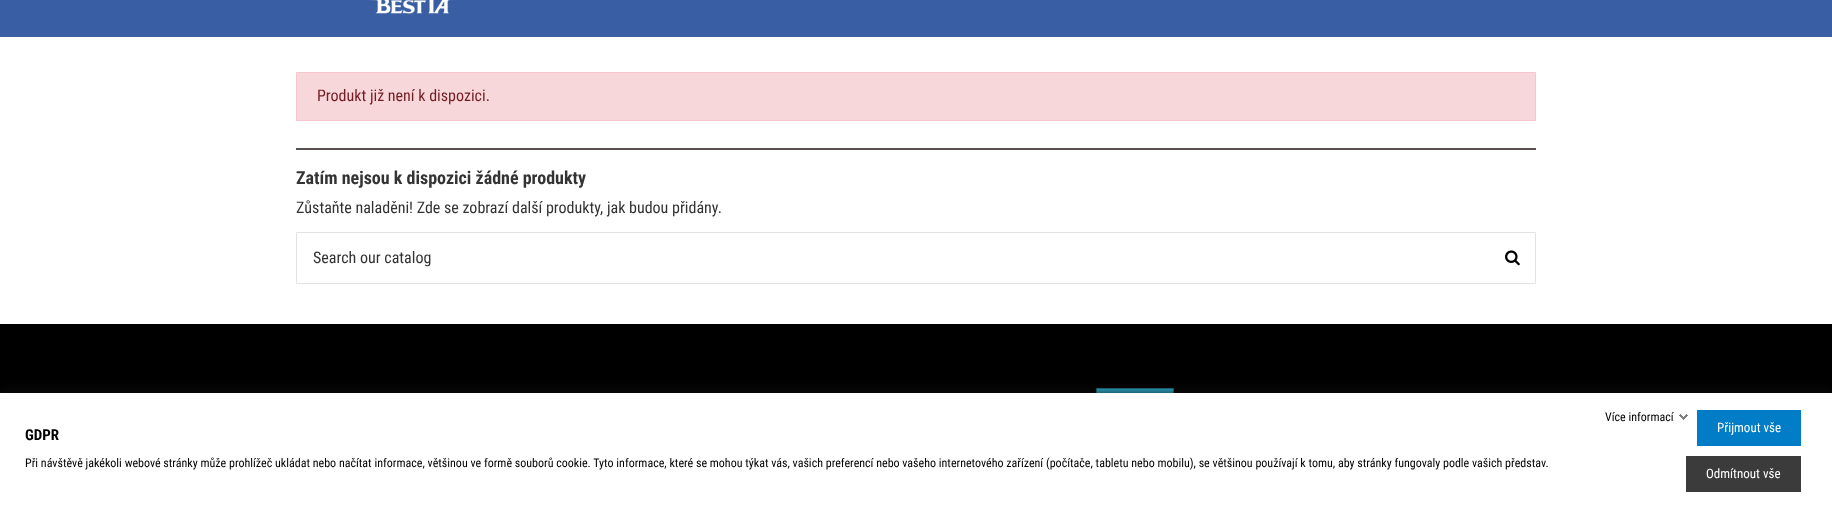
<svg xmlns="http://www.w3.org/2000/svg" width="1832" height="509">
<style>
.a{font:16px Roboto Condensed;fill:#721c24}
.b{font:bold 18px Roboto Condensed;fill:#333}
.c{font:16px Roboto Condensed;fill:#333}
.d{font:bold 15px Roboto Condensed;fill:#000}
.e{font:12px Roboto Condensed;fill:#000}
.f{font:13px Roboto Condensed;fill:#fff}
</style>
<rect width="100%" height="100%" fill="#fff"/>
<path fill="#395ea4" d="M0 0h1832v37H0z"/>
<image href="1.png" x="369" y="0" width="89" height="14"/>
<path fill="#f8d7da" stroke="#f5c6cb" d="M296.5 72.5h1239v48H296.5z"/>
<path fill="#595050" d="M296 148h1240v2H296z"/>
<path fill="none" stroke="#e3e3e3" d="M296.5 232.5h1239v51H296.5z"/>
<image href="2.png" x="1505" y="250" width="15" height="16"/>
<path fill="#000" d="M0 324h1832v69H0z"/>
<path fill="#2fbcdf" d="M1097 389h76v4H1097z"/>
<path fill="none" stroke="#1b768b" d="M1096.5 388.5h77v29H1096.5z"/>
<path fill="#121212" filter="blur(7px)" d="M0 393h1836v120H0z"/>
<path fill="#fff" d="M0 393h1832v116H0z"/>
<image href="3.png" x="1679" y="414" width="9" height="6"/>
<path fill="#007dc6" d="M1697 410h104v36H1697z"/>
<path fill="#3b3b3b" d="M1686 456h115v36H1686z"/>
<text class="a" x="317" y="101">Produkt již není k dispozici.</text>
<text class="b" x="296" y="184">Zatím nejsou k dispozici žádné produkty</text>
<text class="c" x="296" y="213">Zůstaňte naladěni! Zde se zobrazí další produkty, jak budou přidány.</text>
<text class="c" x="313" y="263">Search our catalog</text>
<text class="d" x="25" y="440">GDPR</text>
<text class="e" x="25" y="467">Při návštěvě jakékoli webové stránky může prohlížeč ukládat nebo načítat informace, většinou ve formě souborů cookie. Tyto informace, které se mohou týkat vás, vašich preferencí nebo vašeho internetového zařízení (počítače, tabletu nebo mobilu), se většinou používají k tomu, aby stránky fungovaly podle vašich představ.</text>
<text class="e" x="1605" y="421">Více informací</text>
<text class="f" x="1717" y="432">Přijmout vše</text>
<text class="f" x="1706" y="478">Odmítnout vše</text>
</svg>
